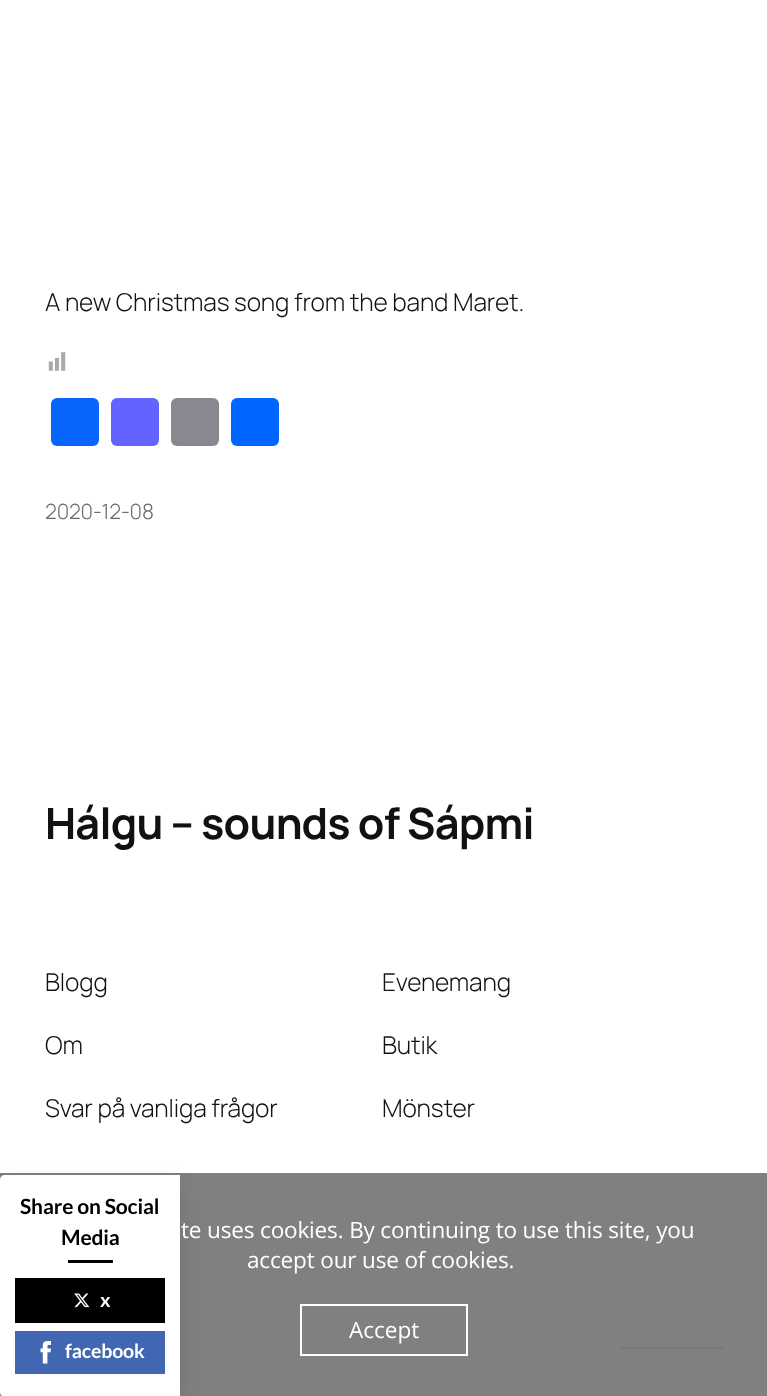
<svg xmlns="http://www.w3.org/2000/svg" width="767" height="1396">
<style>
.a{font:300 24.6px Manrope;letter-spacing:-0.15px;fill:#111}
.b{font:300 21px Manrope;letter-spacing:-0.15px;fill:#686868}
.c{font:bold 43.1px Manrope;letter-spacing:-0.75px;fill:#111}
.d{font:bold 21px Lato;letter-spacing:-0.15px;fill:#000}
.e{font:bold 19.5px Lato;letter-spacing:-0.15px;fill:#fff}
.f{font:22.5px Open Sans;letter-spacing:-0.15px;fill:#fff}
.g{font:22.5px Open Sans;fill:#fff}
</style>
<rect width="100%" height="100%" fill="#fff"/>
<image href="1.png" x="48" y="352" width="18" height="19"/>
<rect fill="#0866ff" x="51" y="398" width="48" height="48" rx="6"/>
<rect fill="#6364ff" x="111" y="398" width="48" height="48" rx="6"/>
<rect fill="#888990" x="171" y="398" width="48" height="48" rx="6"/>
<rect fill="#0166ff" x="231" y="398" width="48" height="48" rx="6"/>
<path fill="#111" d="M621 1347h102v2H621z"/>
<path fill="#7c7c7cf7" d="M0 1173h767v223H0z"/>
<rect fill="#0000001a" filter="blur(10px)" y="1182" width="180" height="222" rx="5"/>
<path fill="#fff" d="M5 1175h175v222h-175c-3 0-5-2-5-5v-212c0-3 2-5 5-5z"/>
<path fill="#000" d="M68 1260h45v3H68z"/>
<path fill="#000" d="M15 1278h150v45H15z"/>
<image href="2.png" x="74" y="1293" width="16" height="15"/>
<path fill="#4267b2" d="M15 1331h150v43H15z"/>
<image href="3.png" x="40" y="1341" width="11" height="23"/>
<path fill="none" stroke="#fff" stroke-width="2" d="M301 1305h166v50H301z"/>
<text class="a" x="45" y="311">A new Christmas song from the band Maret.</text>
<text class="b" x="45" y="519">2020-12-08</text>
<text class="c" x="45" y="839">Hálgu – sounds of Sápmi</text>
<text class="a" x="45" y="991">Blogg</text>
<text class="a" x="45" y="1054">Om</text>
<text class="a" x="45" y="1117">Svar på vanliga frågor</text>
<text class="a" x="382" y="991">Evenemang</text>
<text class="a" x="382" y="1054">Butik</text>
<text class="a" x="382" y="1117">Mönster</text>
<text class="d" x="20" y="1214">Share on Social</text>
<text class="d" x="61" y="1245">Media</text>
<text class="e" x="100" y="1307">x</text>
<text class="e" x="65" y="1358">facebook</text>
<text class="f" x="181" y="1238">te uses cookies. By continuing to use this site, you</text>
<text class="f" x="247" y="1268">accept our use of cookies.</text>
<text class="g" x="349" y="1338">Accept</text>
</svg>
